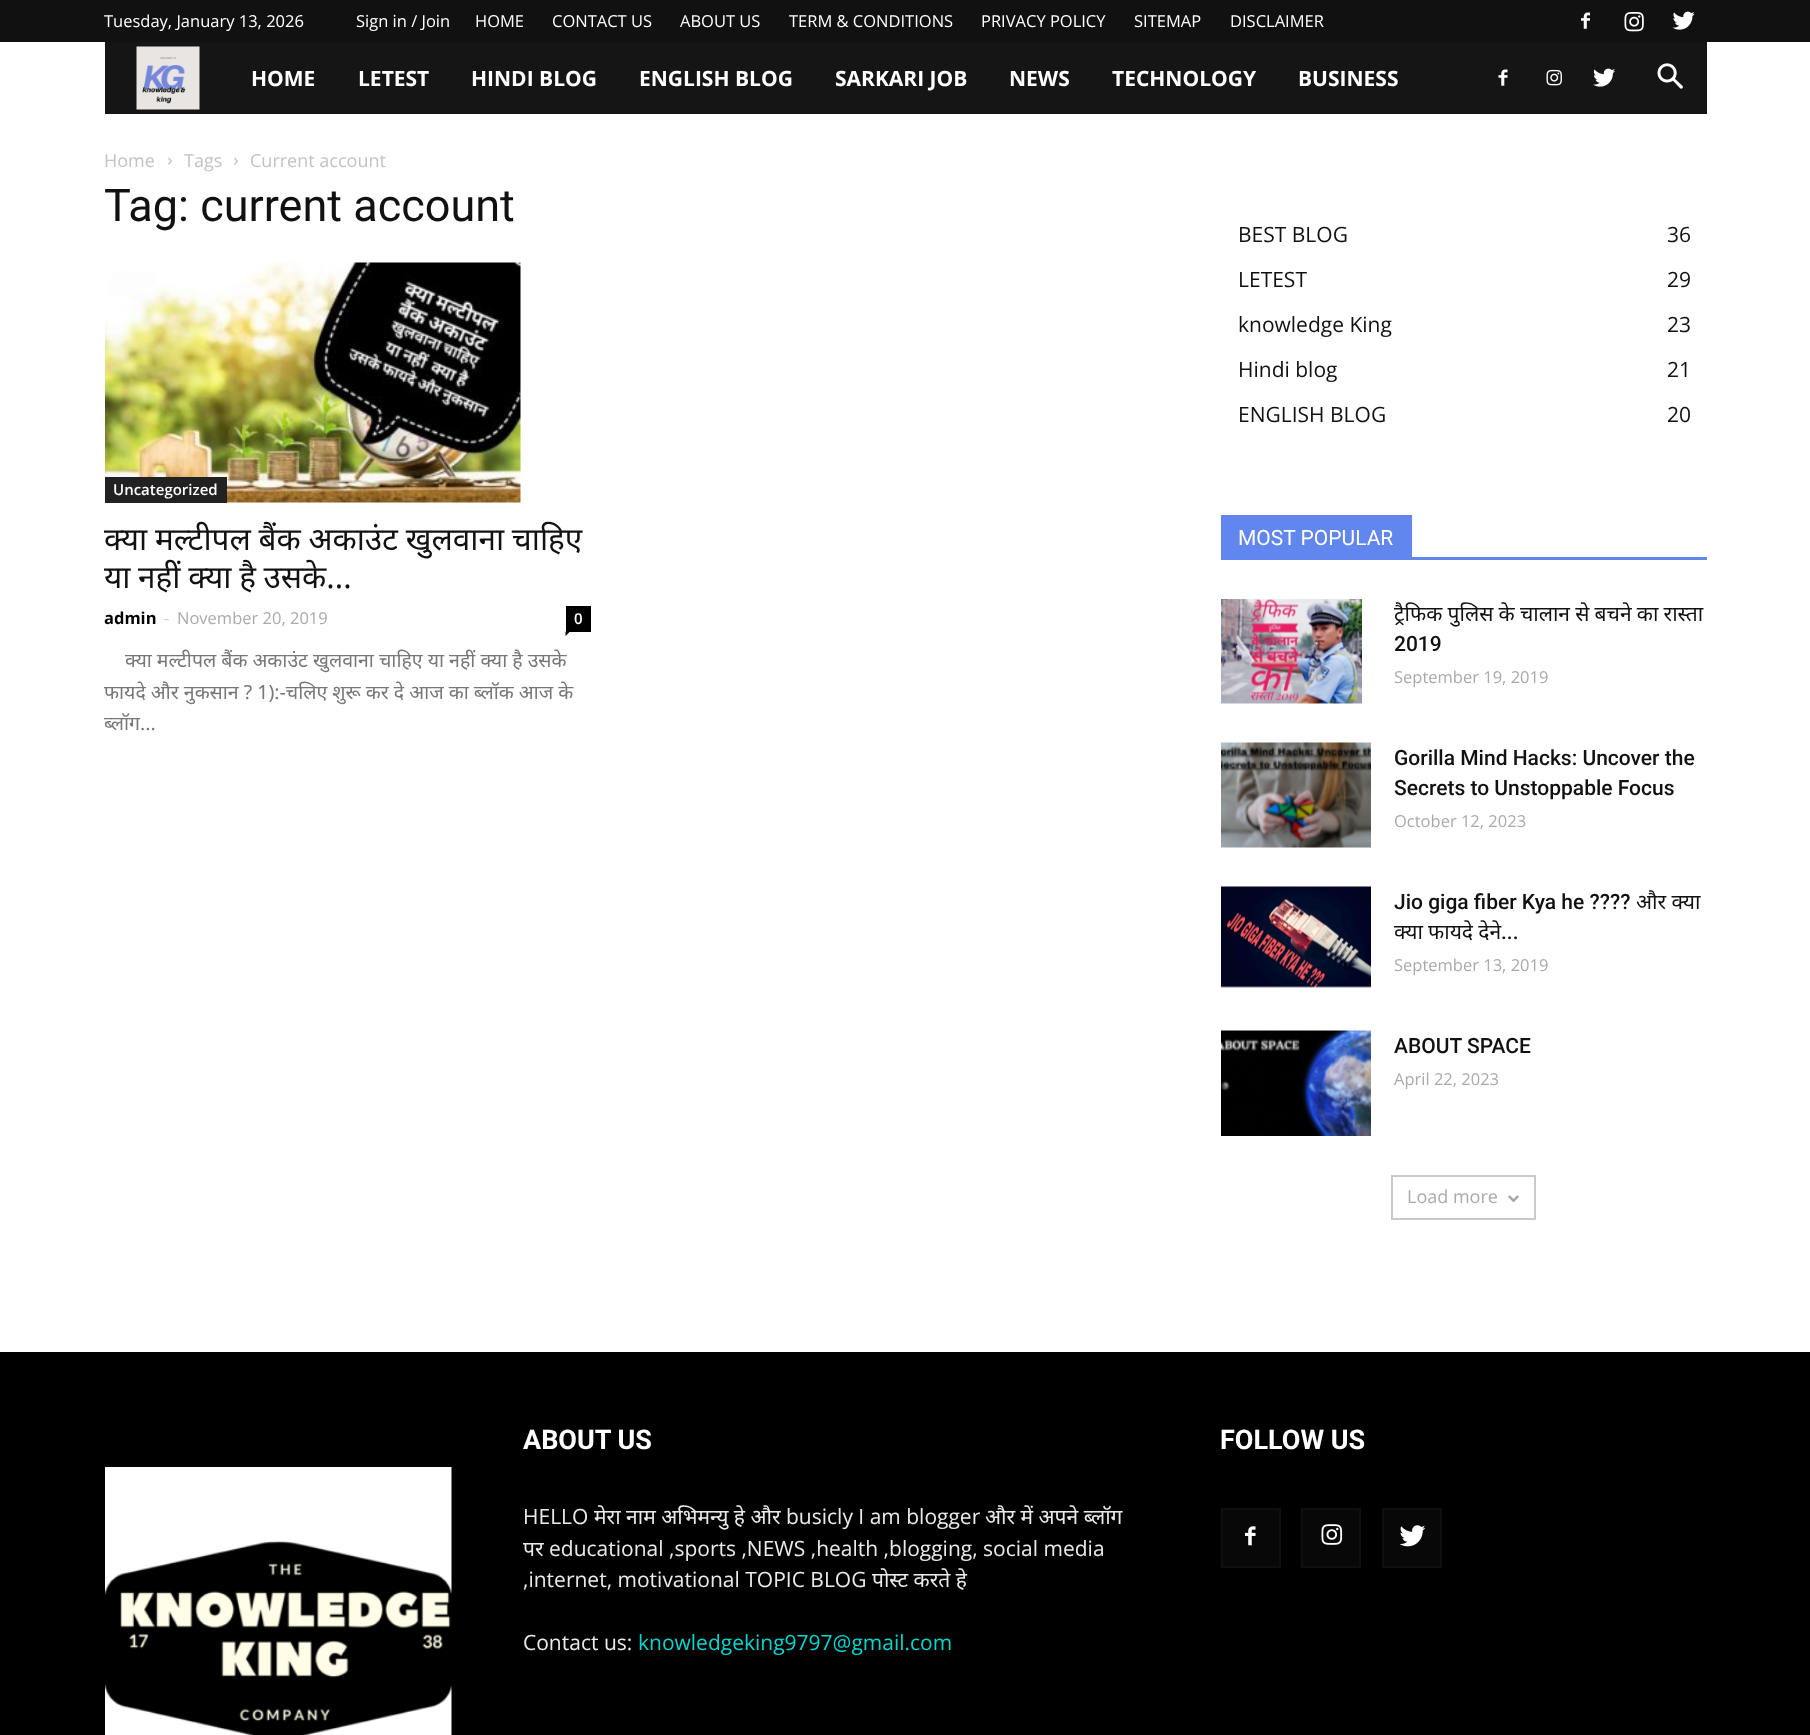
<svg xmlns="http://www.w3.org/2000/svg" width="1810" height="1735">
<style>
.a{font:16.5px Open Sans;fill:#fff}
.b{font:bold 21px Open Sans;fill:#fff}
.c{font:18px Open Sans;fill:#c3c3c3}
.d{font:45px Roboto;fill:#111}
.e{font:600 15px Open Sans;fill:#fff}
.f{font:31.5px Noto Sans;fill:#111}
.g{font:bold 16.5px Open Sans;fill:#000}
.h{font:16.5px Open Sans;fill:#ccc}
.i{font:16.5px Open Sans;fill:#aaa}
.j{font:19.5px Noto Sans;fill:#777}
.k{font:21px Open Sans;fill:#111}
.l{font:21px Roboto;fill:#fff}
.m{font:21px Noto Sans;fill:#111}
.n{font:500 21px Roboto;fill:#111}
.o{font:18px Open Sans;fill:#aaa}
.p{font:bold 27px Roboto;fill:#fff}
.q{font:21px Open Sans;fill:#eaeaea}
.r{font:21px Noto Sans;fill:#eaeaea}
.s{font:21px Open Sans;fill:#02d6cf}
</style>
<rect width="100%" height="100%" fill="#fff"/>
<path fill="#111" d="M0 0h1810v42H0z"/>
<image href="1.png" x="1581" y="12" width="9" height="17"/>
<image href="2.png" x="1624" y="12" width="20" height="20"/>
<image href="3.png" x="1672" y="11" width="23" height="19"/>
<path fill="#151515" d="M105 42h1602v72H105z"/>
<image href="4.png" x="136" y="46" width="64" height="64"/>
<image href="5.png" x="1498" y="69" width="10" height="17"/>
<image href="6.png" x="1546" y="69" width="16" height="17"/>
<image href="7.png" x="1593" y="68" width="22" height="19"/>
<image href="8.png" x="1657" y="63" width="26" height="26"/>
<image href="9.png" x="168" y="157" width="4" height="8"/>
<image href="9.png" x="234" y="157" width="4" height="8"/>
<image href="10.png" x="105" y="262" width="416" height="241"/>
<path fill="#222" d="M105 477h122v26H105z"/>
<path fill="#000" d="M566 606h25v26H566z"/>
<path fill="#000" d="M565.5 631.5h4.5l-4.5 4.5z"/>
<path fill="#6186ed" d="M1221 557h486v3H1221z"/>
<path fill="#6186ed" d="M1221 515h191v42H1221z"/>
<image href="11.png" x="1221" y="599" width="141" height="105"/>
<image href="12.png" x="1221" y="742" width="150" height="106"/>
<image href="13.png" x="1221" y="886" width="150" height="102"/>
<image href="14.png" x="1221" y="1030" width="150" height="106"/>
<path fill="none" stroke="#c9c9c9" stroke-width="2" d="M1392 1176h143v43H1392z"/>
<image href="15.png" x="1508" y="1195" width="11" height="8"/>
<path fill="#000" d="M0 1352h1810v383H0z"/>
<path fill="#080808" d="M1223 1510h56v56H1223z"/>
<image href="16.png" x="1245" y="1526" width="11" height="20"/>
<path fill="none" stroke="#0f0f0f" stroke-width="2" d="M1222 1509h58v58H1222z"/>
<path fill="#080808" d="M1303 1510h56v56H1303z"/>
<image href="17.png" x="1321" y="1524" width="22" height="21"/>
<path fill="none" stroke="#0f0f0f" stroke-width="2" d="M1302 1509h58v58H1302z"/>
<path fill="#080808" d="M1384 1510h56v56H1384z"/>
<image href="18.png" x="1399" y="1525" width="27" height="22"/>
<path fill="none" stroke="#0f0f0f" stroke-width="2" d="M1383 1509h58v58H1383z"/>
<image href="19.png" x="105" y="1467" width="347" height="268"/>
<text class="a" x="104" y="27">Tuesday, January 13, 2026</text>
<text class="a" x="356" y="27">Sign in / Join</text>
<text class="a" x="475" y="27">HOME</text>
<text class="a" x="552" y="27">CONTACT US</text>
<text class="a" x="680" y="27">ABOUT US</text>
<text class="a" x="789" y="27">TERM &amp; CONDITIONS</text>
<text class="a" x="981" y="27">PRIVACY POLICY</text>
<text class="a" x="1134" y="27">SITEMAP</text>
<text class="a" x="1230" y="27">DISCLAIMER</text>
<text class="b" x="251" y="86">HOME</text>
<text class="b" x="358" y="86">LETEST</text>
<text class="b" x="471" y="86">HINDI BLOG</text>
<text class="b" x="639" y="86">ENGLISH BLOG</text>
<text class="b" x="835" y="86">SARKARI JOB</text>
<text class="b" x="1009" y="86">NEWS</text>
<text class="b" x="1112" y="86">TECHNOLOGY</text>
<text class="b" x="1298" y="86">BUSINESS</text>
<text class="c" x="104" y="167">Home</text>
<text class="c" x="184" y="167">Tags</text>
<text class="c" x="250" y="167">Current account</text>
<text class="d" x="104" y="221">Tag: current account</text>
<text class="e" x="113" y="495">Uncategorized</text>
<text class="f" x="104" y="550" word-spacing="-0.5">क्या मल्टीपल बैंक अकाउंट खुलवाना चाहिए</text>
<text class="f" x="104" y="588" word-spacing="-0.5">या नहीं क्या है उसके...</text>
<text class="g" x="104" y="624">admin</text>
<text class="h" x="164" y="624">-</text>
<text class="i" x="177" y="624">November 20, 2019</text>
<text class="e" x="574" y="624">0</text>
<text class="j" x="125" y="667">क्या मल्टीपल बैंक अकाउंट खुलवाना चाहिए या नहीं क्या है उसके</text>
<text class="j" x="104" y="699">फायदे और नुकसान ? 1):-चलिए शुरू कर दे आज का ब्लॉक आज के</text>
<text class="j" x="104" y="730">ब्लॉग...</text>
<text class="k" x="1238" y="242">BEST BLOG</text>
<text class="k" x="1667" y="242">36</text>
<text class="k" x="1238" y="287">LETEST</text>
<text class="k" x="1667" y="287">29</text>
<text class="k" x="1238" y="332">knowledge King</text>
<text class="k" x="1667" y="332">23</text>
<text class="k" x="1238" y="377">Hindi blog</text>
<text class="k" x="1667" y="377">21</text>
<text class="k" x="1238" y="422">ENGLISH BLOG</text>
<text class="k" x="1667" y="422">20</text>
<text class="l" x="1238" y="545">MOST POPULAR</text>
<text class="m" x="1394" y="621" word-spacing="-0.25">ट्रैफिक पुलिस के चालान से बचने का रास्ता</text>
<text class="n" x="1394" y="651">2019</text>
<text class="i" x="1394" y="683">September 19, 2019</text>
<text class="n" x="1394" y="765">Gorilla Mind Hacks: Uncover the</text>
<text class="n" x="1394" y="795">Secrets to Unstoppable Focus</text>
<text class="i" x="1394" y="827">October 12, 2023</text>
<text class="n" x="1394" y="909">Jio giga fiber Kya he ????</text>
<text class="m" x="1636" y="909">और क्या</text>
<text class="m" x="1394" y="939" word-spacing="-0.25">क्या फायदे देने</text>
<text class="n" x="1501" y="939">...</text>
<text class="i" x="1394" y="971">September 13, 2019</text>
<text class="n" x="1394" y="1053">ABOUT SPACE</text>
<text class="i" x="1394" y="1085">April 22, 2023</text>
<text class="o" x="1407" y="1203">Load more</text>
<text class="p" x="523" y="1449">ABOUT US</text>
<text class="q" x="523" y="1524">HELLO</text>
<text class="r" x="594" y="1524">मेरा नाम अभिमन्यु हे और</text>
<text class="q" x="786" y="1524">busicly I am blogger</text>
<text class="r" x="985" y="1524">और में अपने ब्लॉग</text>
<text class="r" x="523" y="1556">पर</text>
<text class="q" x="549" y="1556">educational ,sports ,NEWS ,health ,blogging, social media</text>
<text class="q" x="523" y="1587">,internet, motivational TOPIC BLOG</text>
<text class="r" x="872" y="1587">पोस्ट करते हे</text>
<text class="q" x="523" y="1650">Contact us:</text>
<text class="s" x="638" y="1650">knowledgeking9797@gmail.com</text>
<text class="p" x="1220" y="1449">FOLLOW US</text>
</svg>
